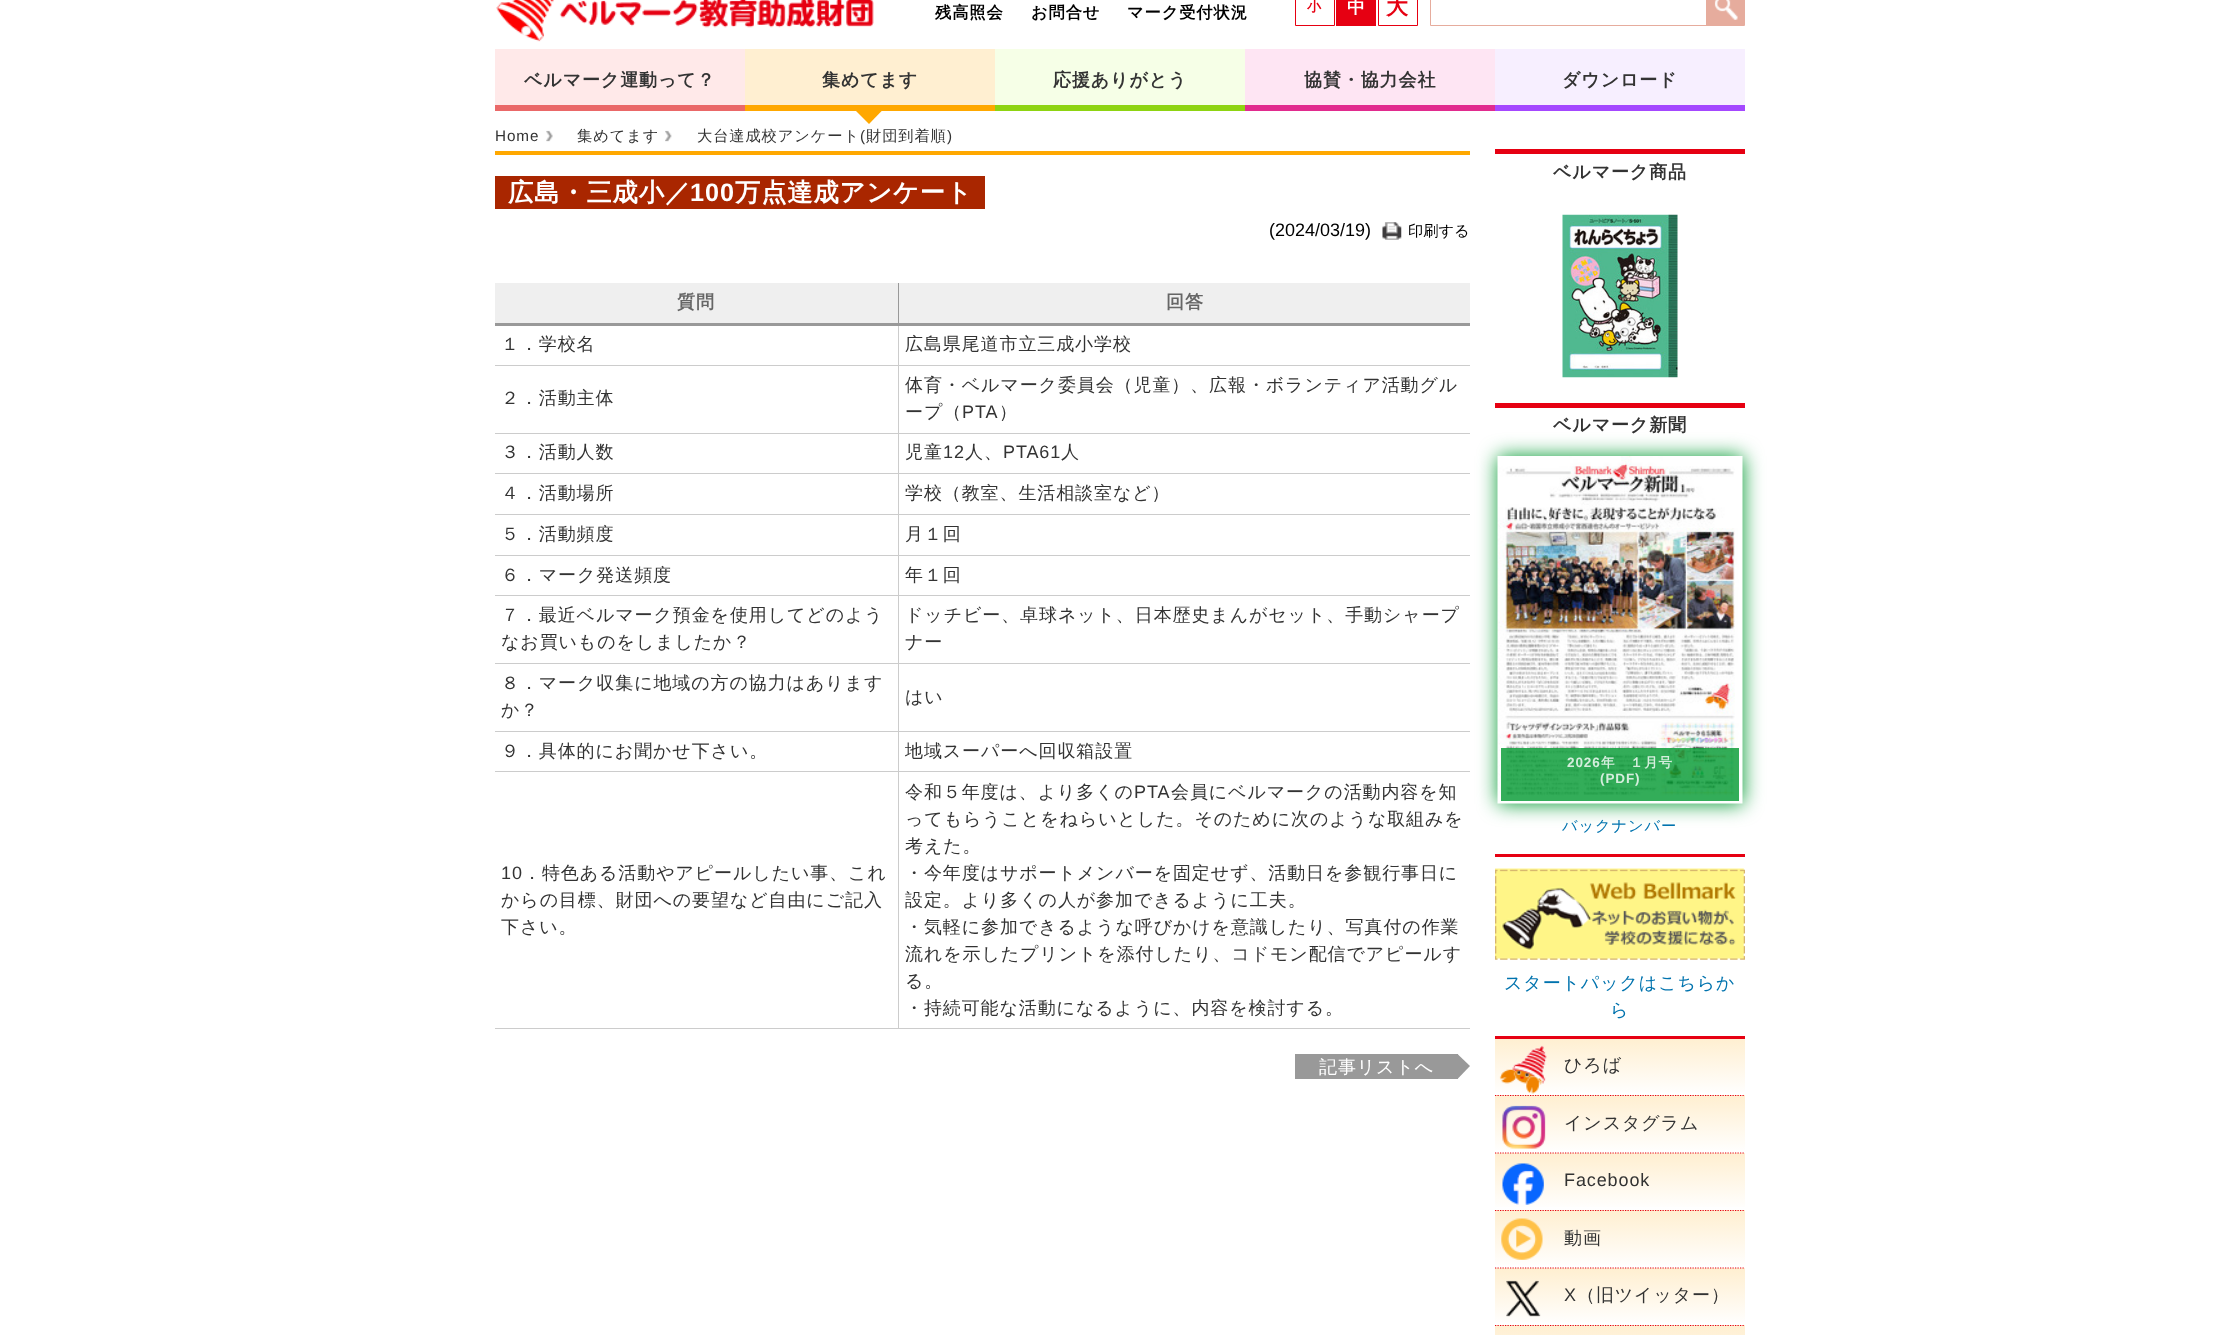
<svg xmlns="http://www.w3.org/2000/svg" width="2240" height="1335">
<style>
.a{font:bold 16.25px WenQuanYi Zen Hei;letter-spacing:0.9px;fill:#000}
.b{font:bold 14px WenQuanYi Zen Hei;letter-spacing:0.9px;fill:#e60012}
.c{font:bold 18px WenQuanYi Zen Hei;letter-spacing:0.9px;fill:#fff}
.d{font:bold 22px WenQuanYi Zen Hei;letter-spacing:0.9px;fill:#e60012}
.e{font:bold 18px WenQuanYi Zen Hei;letter-spacing:0.9px;fill:#333}
.f{font:15.25px Liberation Sans;letter-spacing:0.9px;fill:#333}
.g{font:500 15.25px WenQuanYi Zen Hei;letter-spacing:0.9px;fill:#333}
.h{font:bold 25.25px WenQuanYi Zen Hei;letter-spacing:0.9px;fill:#fff}
.i{font:bold 25.25px Liberation Sans;letter-spacing:0.9px;fill:#fff}
.j{font:18px Liberation Sans;fill:#000}
.k{font:500 15.25px WenQuanYi Zen Hei;fill:#000}
.l{font:bold 18px WenQuanYi Zen Hei;letter-spacing:0.9px;fill:#666}
.m{font:500 18px WenQuanYi Zen Hei;letter-spacing:0.9px;fill:#333}
.n{font:18px Liberation Sans;letter-spacing:0.9px;fill:#333}
.o{font:500 18px WenQuanYi Zen Hei;letter-spacing:0.9px;fill:#fff}
.p{font:bold 13.5px Liberation Sans;letter-spacing:0.9px;fill:#d5eedd}
.q{font:bold 13.5px WenQuanYi Zen Hei;letter-spacing:0.9px;fill:#d5eedd}
.r{font:500 15.25px WenQuanYi Zen Hei;letter-spacing:0.9px;fill:#0073ae}
.s{font:500 18px WenQuanYi Zen Hei;letter-spacing:0.9px;fill:#0073ae}
</style>
<defs>
<linearGradient id="g1" gradientUnits="userSpaceOnUse" x1="1620" y1="1039" x2="1620" y2="1095"><stop offset="0" stop-color="#ffefd1"/><stop offset="1" stop-color="#fff"/></linearGradient>
<linearGradient id="g2" gradientUnits="userSpaceOnUse" x1="1620" y1="1095" x2="1620" y2="1151"><stop offset="0" stop-color="#ffefd1"/><stop offset="1" stop-color="#fff"/></linearGradient>
<linearGradient id="g3" gradientUnits="userSpaceOnUse" x1="1620" y1="1096" x2="1620" y2="1153"><stop offset="0" stop-color="#ffefd1"/><stop offset="1" stop-color="#fff"/></linearGradient>
<linearGradient id="g4" gradientUnits="userSpaceOnUse" x1="1620" y1="1153" x2="1620" y2="1209"><stop offset="0" stop-color="#ffefd1"/><stop offset="1" stop-color="#fff"/></linearGradient>
<linearGradient id="g5" gradientUnits="userSpaceOnUse" x1="1620" y1="1154" x2="1620" y2="1210"><stop offset="0" stop-color="#ffefd1"/><stop offset="1" stop-color="#fff"/></linearGradient>
<linearGradient id="g6" gradientUnits="userSpaceOnUse" x1="1620" y1="1210" x2="1620" y2="1266"><stop offset="0" stop-color="#ffefd1"/><stop offset="1" stop-color="#fff"/></linearGradient>
<linearGradient id="g7" gradientUnits="userSpaceOnUse" x1="1620" y1="1211" x2="1620" y2="1268"><stop offset="0" stop-color="#ffefd1"/><stop offset="1" stop-color="#fff"/></linearGradient>
<linearGradient id="g8" gradientUnits="userSpaceOnUse" x1="1620" y1="1268" x2="1620" y2="1324"><stop offset="0" stop-color="#ffefd1"/><stop offset="1" stop-color="#fff"/></linearGradient>
<linearGradient id="g9" gradientUnits="userSpaceOnUse" x1="1620" y1="1269" x2="1620" y2="1325"><stop offset="0" stop-color="#ffefd1"/><stop offset="1" stop-color="#fff"/></linearGradient>
<linearGradient id="g10" gradientUnits="userSpaceOnUse" x1="1620" y1="1325" x2="1620" y2="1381"><stop offset="0" stop-color="#ffefd1"/><stop offset="1" stop-color="#fff"/></linearGradient>
<linearGradient id="g11" gradientUnits="userSpaceOnUse" x1="1620" y1="1326" x2="1620" y2="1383"><stop offset="0" stop-color="#ffefd1"/><stop offset="1" stop-color="#fff"/></linearGradient>
</defs>
<rect width="100%" height="100%" fill="#fff"/>
<image href="1.png" x="496" y="0" width="378" height="42"/>
<path fill="none" stroke="#e60012" d="M1295.5 -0.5h39v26H1295.5z"/>
<path fill="#e60012" d="M1336 0h40v26H1336z"/>
<path fill="none" stroke="#e60012" d="M1378.5 -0.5h39v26H1378.5z"/>
<path fill="none" stroke="#e6ac9d" d="M1430.5 -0.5h314v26H1430.5z"/>
<path fill="#e6ac9d" d="M1706 0h38v25H1706z"/>
<image href="2.png" x="1714" y="0" width="24" height="20"/>
<path fill="#ffe9e9" d="M495 49h250v56H495z"/>
<path fill="#ea6868" d="M495 105h250v6H495z"/>
<path fill="#ffefd1" d="M745 49h250v56H745z"/>
<path fill="#ffa800" d="M745 105h250v6H745z"/>
<path fill="#ffa800" d="M850 105h37.5l-18.5 19z"/>
<path fill="#f6ffe7" d="M995 49h250v56H995z"/>
<path fill="#8ed412" d="M995 105h250v6H995z"/>
<path fill="#fee5f3" d="M1245 49h250v56H1245z"/>
<path fill="#e12b8e" d="M1245 105h250v6H1245z"/>
<path fill="#f7efff" d="M1495 49h250v56H1495z"/>
<path fill="#a448ff" d="M1495 105h250v6H1495z"/>
<path fill="#ffa800" d="M495 151h975v4H495z"/>
<image href="3.png" x="546" y="130" width="7" height="12"/>
<image href="4.png" x="665" y="130" width="7" height="12"/>
<path fill="#a92600" d="M495 176h490v33H495z"/>
<image href="5.png" x="1382" y="222" width="20" height="18"/>
<path fill="#efefef" d="M495 283h403v40H495z"/>
<path fill="#ccc" d="M898 1028h572v1H898z"/>
<path fill="#ccc" d="M898 771h1v258H898z"/>
<path fill="#ccc" d="M898 771h572v1H898z"/>
<path fill="#ccc" d="M898 731h1v42H898z"/>
<path fill="#ccc" d="M898 731h572v1H898z"/>
<path fill="#ccc" d="M898 663h1v70H898z"/>
<path fill="#ccc" d="M898 663h572v1H898z"/>
<path fill="#ccc" d="M898 595h1v69H898z"/>
<path fill="#ccc" d="M898 595h572v1H898z"/>
<path fill="#ccc" d="M898 555h1v41H898z"/>
<path fill="#ccc" d="M898 555h572v1H898z"/>
<path fill="#ccc" d="M898 514h1v42H898z"/>
<path fill="#ccc" d="M898 514h572v1H898z"/>
<path fill="#ccc" d="M898 473h1v42H898z"/>
<path fill="#ccc" d="M898 473h572v1H898z"/>
<path fill="#ccc" d="M898 433h1v41H898z"/>
<path fill="#ccc" d="M898 433h572v1H898z"/>
<path fill="#ccc" d="M898 365h1v69H898z"/>
<path fill="#ccc" d="M898 365h572v1H898z"/>
<path fill="#ccc" d="M898 324h1v42H898z"/>
<path fill="#999" d="M898 283h1v42H898z"/>
<path fill="#efefef" d="M899 283h571v40H899z"/>
<path fill="#999" d="M495 323h975v3H495z"/>
<path fill="#ccc" d="M495 365h404v1H495z"/>
<path fill="#ccc" d="M495 433h404v1H495z"/>
<path fill="#ccc" d="M495 473h404v1H495z"/>
<path fill="#ccc" d="M495 514h404v1H495z"/>
<path fill="#ccc" d="M495 555h404v1H495z"/>
<path fill="#ccc" d="M495 595h404v1H495z"/>
<path fill="#ccc" d="M495 663h404v1H495z"/>
<path fill="#ccc" d="M495 731h404v1H495z"/>
<path fill="#ccc" d="M495 771h404v1H495z"/>
<path fill="#ccc" d="M495 1028h404v1H495z"/>
<path fill="#999" d="M1295 1054h163v25H1295z"/>
<path fill="#999" d="M1457.5 1079v-25l12.5 12z"/>
<path fill="#e60012" d="M1495 149h250v5H1495z"/>
<image href="6.png" x="1562" y="214" width="116" height="164"/>
<path fill="#e60012" d="M1495 403h250v5H1495z"/>
<path fill="#009930" filter="blur(10px)" d="M1498 456h245v348H1498z"/>
<image href="7.png" x="1497" y="456" width="246" height="348"/>
<path fill="#009930cc" d="M1501 748h238v53H1501z"/>
<path fill="#e60012" d="M1495 854h250v3H1495z"/>
<image href="8.png" x="1495" y="868" width="250" height="92"/>
<path fill="#e60012" d="M1495 1036h250v3H1495z"/>
<path fill="url(#g1)" d="M1495 1039h250v53H1495z"/>
<path fill="url(#g2)" d="M1495 1095h250v1H1495z"/>
<path fill="none" stroke="#e60012" stroke-width="1.2" stroke-dasharray="1.25 1.25" d="M1495 1095.5h250"/>
<image href="9.png" x="1499" y="1045" width="48" height="49"/>
<path fill="url(#g3)" d="M1495 1096h250v54H1495z"/>
<path fill="url(#g4)" d="M1495 1153h250v1H1495z"/>
<path fill="none" stroke="#e60012" stroke-width="1.2" stroke-dasharray="1.25 1.25" d="M1495 1153h250"/>
<image href="10.png" x="1502" y="1105" width="44" height="44"/>
<path fill="url(#g5)" d="M1495 1154h250v53H1495z"/>
<path fill="url(#g6)" d="M1495 1210h250v1H1495z"/>
<path fill="none" stroke="#e60012" stroke-width="1.2" stroke-dasharray="1.25 1.25" d="M1495 1210.5h250"/>
<image href="11.png" x="1502" y="1163" width="42" height="42"/>
<path fill="url(#g7)" d="M1495 1211h250v54H1495z"/>
<path fill="url(#g8)" d="M1495 1268h250v1H1495z"/>
<path fill="none" stroke="#e60012" stroke-width="1.2" stroke-dasharray="1.25 1.25" d="M1495 1268h250"/>
<image href="12.png" x="1501" y="1218" width="42" height="42"/>
<path fill="url(#g9)" d="M1495 1269h250v53H1495z"/>
<path fill="url(#g10)" d="M1495 1325h250v1H1495z"/>
<path fill="none" stroke="#e60012" stroke-width="1.2" stroke-dasharray="1.25 1.25" d="M1495 1325.5h250"/>
<image href="13.png" x="1506" y="1280" width="35" height="37"/>
<path fill="url(#g11)" d="M1495 1326h250v9H1495z"/>
<text class="a" x="935" y="18">残高照会</text>
<text class="a" x="1031" y="18">お問合せ</text>
<text class="a" x="1127" y="18">マーク受付状況</text>
<text class="b" x="1307" y="11">小</text>
<text class="c" x="1347" y="13">中</text>
<text class="d" x="1386" y="14">大</text>
<text class="e" x="524" y="86">ベルマーク運動って？</text>
<text class="e" x="822" y="86">集めてます</text>
<text class="e" x="1053" y="86">応援ありがとう</text>
<text class="e" x="1304" y="86">協賛・協力会社</text>
<text class="e" x="1562" y="86">ダウンロード</text>
<text class="f" x="495" y="141">Home</text>
<text class="g" x="577" y="141">集めてます</text>
<text class="g" x="697" y="141">大台達成校アンケート</text>
<text class="f" x="860" y="141">(</text>
<text class="g" x="866" y="141">財団到着順</text>
<text class="f" x="947" y="141">)</text>
<text class="h" x="508" y="201">広島・三成小／</text>
<text class="i" x="690" y="201">100</text>
<text class="h" x="735" y="201">万点達成アンケート</text>
<text class="j" x="1269" y="236">(2024/03/19)</text>
<text class="k" x="1408" y="236">印刷する</text>
<text class="l" x="677" y="308">質問</text>
<text class="l" x="1166" y="308">回答</text>
<text class="m" x="501" y="350">１．学校名</text>
<text class="m" x="905" y="350">広島県尾道市立三成小学校</text>
<text class="m" x="501" y="404">２．活動主体</text>
<text class="m" x="905" y="391">体育・ベルマーク委員会（児童）、広報・ボランティア活動グル</text>
<text class="m" x="905" y="418">ープ（</text>
<text class="n" x="962" y="418">PTA</text>
<text class="m" x="999" y="418">）</text>
<text class="m" x="501" y="458">３．活動人数</text>
<text class="m" x="905" y="458">児童</text>
<text class="n" x="943" y="458">12</text>
<text class="m" x="965" y="458">人、</text>
<text class="n" x="1003" y="458">PTA61</text>
<text class="m" x="1061" y="458">人</text>
<text class="m" x="501" y="499">４．活動場所</text>
<text class="m" x="905" y="499">学校（教室、生活相談室など）</text>
<text class="m" x="501" y="540">５．活動頻度</text>
<text class="m" x="905" y="540">月１回</text>
<text class="m" x="501" y="581">６．マーク発送頻度</text>
<text class="m" x="905" y="581">年１回</text>
<text class="m" x="501" y="621">７．最近ベルマーク預金を使用してどのよう</text>
<text class="m" x="501" y="648">なお買いものをしましたか？</text>
<text class="m" x="905" y="621">ドッチビー、卓球ネット、日本歴史まんがセット、手動シャープ</text>
<text class="m" x="905" y="648">ナー</text>
<text class="m" x="501" y="689">８．マーク収集に地域の方の協力はあります</text>
<text class="m" x="501" y="716">か？</text>
<text class="m" x="905" y="703">はい</text>
<text class="m" x="501" y="757">９．具体的にお聞かせ下さい。</text>
<text class="m" x="905" y="757">地域スーパーへ回収箱設置</text>
<text class="n" x="501" y="879">10</text>
<text class="m" x="523" y="879">．特色ある活動やアピールしたい事、これ</text>
<text class="m" x="501" y="906">からの目標、財団への要望など自由にご記入</text>
<text class="m" x="501" y="933">下さい。</text>
<text class="m" x="905" y="798">令和５年度は、より多くの</text>
<text class="n" x="1134" y="798">PTA</text>
<text class="m" x="1171" y="798">会員にベルマークの活動内容を知</text>
<text class="m" x="905" y="825">ってもらうことをねらいとした。そのために次のような取組みを</text>
<text class="m" x="905" y="852">考えた。</text>
<text class="m" x="905" y="879">・今年度はサポートメンバーを固定せず、活動日を参観行事日に</text>
<text class="m" x="905" y="906">設定。より多くの人が参加できるように工夫。</text>
<text class="m" x="905" y="933">・気軽に参加できるような呼びかけを意識したり、写真付の作業</text>
<text class="m" x="905" y="960">流れを示したプリントを添付したり、コドモン配信でアピールす</text>
<text class="m" x="905" y="987">る。</text>
<text class="m" x="905" y="1014">・持続可能な活動になるように、内容を検討する。</text>
<text class="o" x="1319" y="1073">記事リストへ</text>
<text class="e" x="1553" y="178">ベルマーク商品</text>
<text class="e" x="1553" y="431">ベルマーク新聞</text>
<text class="p" x="1567" y="767">2026</text>
<text class="q" x="1601" y="767">年　１月号</text>
<text class="p" x="1600" y="783">(PDF)</text>
<text class="r" x="1562" y="831">バックナンバー</text>
<text class="s" x="1504" y="989">スタートパックはこちらか</text>
<text class="s" x="1610" y="1016">ら</text>
<text class="m" x="1564" y="1071">ひろば</text>
<text class="m" x="1564" y="1129">インスタグラム</text>
<text class="n" x="1564" y="1186">Facebook</text>
<text class="m" x="1564" y="1244">動画</text>
<text class="n" x="1564" y="1301">X</text>
<text class="m" x="1577" y="1301">（旧ツイッター）</text>
</svg>
